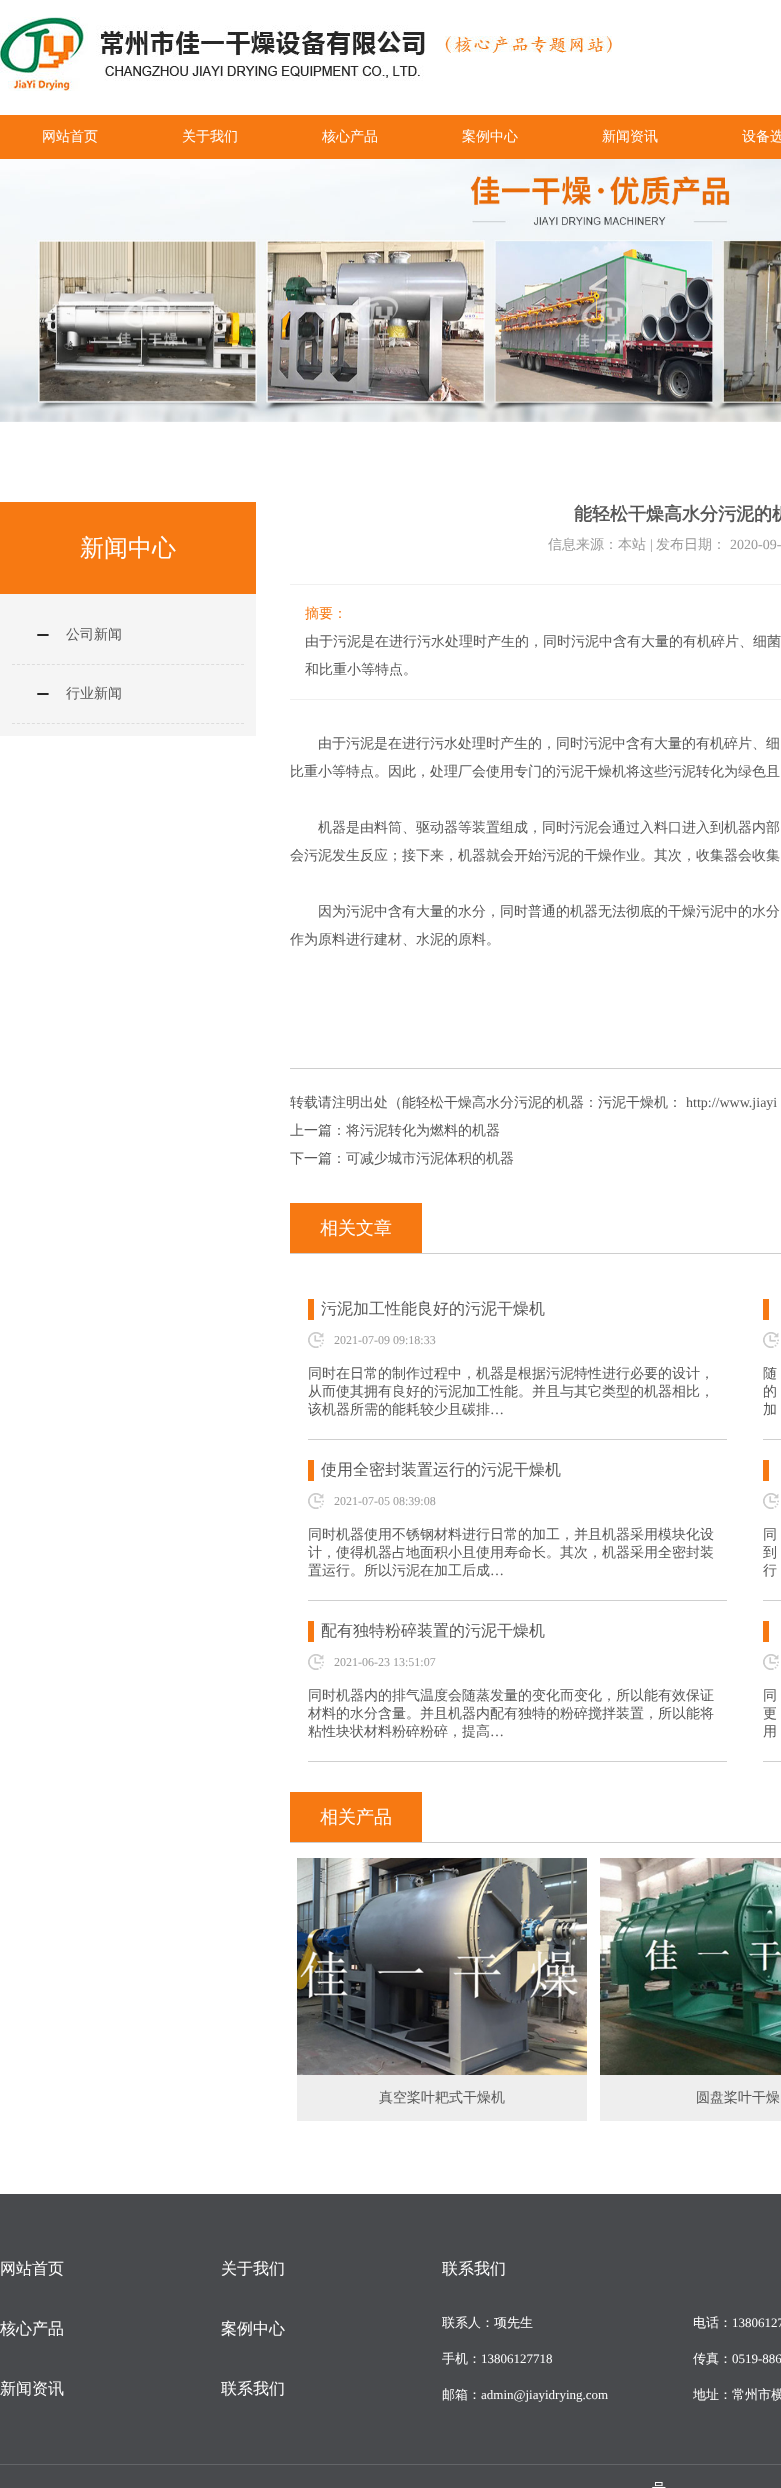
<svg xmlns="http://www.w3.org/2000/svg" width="781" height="2488">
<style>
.a{font:500 14px WenQuanYi Zen Hei;fill:#fff}
.b{font:500 24px WenQuanYi Zen Hei;fill:#fff}
.c{font:500 14px WenQuanYi Zen Hei;fill:#575757}
.d{font:bold 18px WenQuanYi Zen Hei;fill:#575757}
.e{font:500 14px WenQuanYi Zen Hei;fill:#999}
.f{font:14px Liberation Serif;fill:#999}
.g{font:500 14px WenQuanYi Zen Hei;fill:#f77912}
.h{font:14px Liberation Serif;fill:#575757}
.i{font:500 18px WenQuanYi Zen Hei;fill:#fff}
.j{font:500 16px WenQuanYi Zen Hei;fill:#575757}
.k{font:12px Liberation Serif;fill:#999}
.l{font:500 16px WenQuanYi Zen Hei;fill:#fff}
.m{font:500 13px WenQuanYi Zen Hei;fill:#fff}
.n{font:13px Liberation Serif;fill:#fff}
</style>
<rect width="100%" height="100%" fill="#fff"/>
<image href="1.png" x="0" y="17" width="425" height="74"/>
<image href="2.png" x="445" y="36" width="167" height="17"/>
<path fill="#f77912" d="M0 115h781v44H0z"/>
<image href="3.png" x="0" y="159" width="781" height="263"/>
<path fill="#f77912" d="M0 502h256v92H0z"/>
<path fill="#f5f5f5" d="M0 594h256v142H0z"/>
<image href="4.png" x="37" y="634" width="12" height="2"/>
<path fill="none" stroke="#ddd" stroke-dasharray="3 1.98" d="M12 664.5h232"/>
<image href="4.png" x="37" y="693" width="12" height="2"/>
<path fill="none" stroke="#ddd" stroke-dasharray="3 1.98" d="M12 723.5h232"/>
<path fill="#f0f0f0" d="M290 584h491v1H290z"/>
<path fill="#f0f0f0" d="M290 699h491v1H290z"/>
<path fill="#cecece" d="M290 1068h491v1H290z"/>
<path fill="#cecece" d="M290 1253h491v1H290z"/>
<path fill="#f77912" d="M290 1203h132v50H290z"/>
<path fill="#cfcfcf" d="M308 1439h419v1H308z"/>
<path fill="#f77912" d="M308 1299h6v21H308z"/>
<image href="5.png" x="308" y="1332" width="16" height="16"/>
<path fill="#cfcfcf" d="M763 1439h18v1H763z"/>
<path fill="#f77912" d="M763 1299h6v21H763z"/>
<image href="5.png" x="763" y="1332" width="16" height="16"/>
<path fill="#cfcfcf" d="M308 1600h419v1H308z"/>
<path fill="#f77912" d="M308 1460h6v21H308z"/>
<image href="5.png" x="308" y="1493" width="16" height="16"/>
<path fill="#cfcfcf" d="M763 1600h18v1H763z"/>
<path fill="#f77912" d="M763 1460h6v21H763z"/>
<image href="5.png" x="763" y="1493" width="16" height="16"/>
<path fill="#cfcfcf" d="M308 1761h419v1H308z"/>
<path fill="#f77912" d="M308 1621h6v21H308z"/>
<image href="5.png" x="308" y="1654" width="16" height="16"/>
<path fill="#cfcfcf" d="M763 1761h18v1H763z"/>
<path fill="#f77912" d="M763 1621h6v21H763z"/>
<image href="5.png" x="763" y="1654" width="16" height="16"/>
<path fill="#cecece" d="M290 1842h491v1H290z"/>
<path fill="#f77912" d="M290 1792h132v50H290z"/>
<image href="6.png" x="297" y="1858" width="290" height="217"/>
<path fill="#eee" d="M297 2075h290v46H297z"/>
<image href="7.png" x="600" y="1858" width="181" height="217"/>
<path fill="#eee" d="M600 2075h181v46H600z"/>
<path fill="#484a4d" d="M0 2194h781v270H0z"/>
<path fill="#484a4d" d="M0 2465h781v23H0z"/>
<path fill="#636568" d="M0 2464h781v1H0z"/>
<text class="a" x="42" y="141">网站首页</text>
<text class="a" x="182" y="141">关于我们</text>
<text class="a" x="322" y="141">核心产品</text>
<text class="a" x="462" y="141">案例中心</text>
<text class="a" x="602" y="141">新闻资讯</text>
<text class="a" x="742" y="141">设备选</text>
<text class="b" x="80" y="556">新闻中心</text>
<text class="c" x="66" y="639">公司新闻</text>
<text class="c" x="66" y="698">行业新闻</text>
<text class="d" x="574" y="520">能轻松干燥高水分污泥的机</text>
<text class="e" x="548" y="549">信息来源：本站</text>
<text class="f" x="650" y="549">|</text>
<text class="e" x="656" y="549">发布日期：</text>
<text class="f" x="730" y="549">2020-09-</text>
<text class="g" x="305" y="618">摘要：</text>
<text class="c" x="305" y="646">由于污泥是在进行污水处理时产生的，同时污泥中含有大量的有机碎片、细菌</text>
<text class="c" x="305" y="674">和比重小等特点。</text>
<text class="c" x="318" y="748">由于污泥是在进行污水处理时产生的，同时污泥中含有大量的有机碎片、细</text>
<text class="c" x="290" y="776">比重小等特点。因此，处理厂会使用专门的污泥干燥机将这些污泥转化为绿色且</text>
<text class="c" x="318" y="832">机器是由料筒、驱动器等装置组成，同时污泥会通过入料口进入到机器内部</text>
<text class="c" x="290" y="860">会污泥发生反应；接下来，机器就会开始污泥的干燥作业。其次，收集器会收集</text>
<text class="c" x="318" y="916">因为污泥中含有大量的水分，同时普通的机器无法彻底的干燥污泥中的水分</text>
<text class="c" x="290" y="944">作为原料进行建材、水泥的原料。</text>
<text class="c" x="290" y="1107">转载请注明出处（能轻松干燥高水分污泥的机器：污泥干燥机：</text>
<text class="h" x="686" y="1107">http://www.jiayi</text>
<text class="c" x="290" y="1135">上一篇：将污泥转化为燃料的机器</text>
<text class="c" x="290" y="1163">下一篇：可减少城市污泥体积的机器</text>
<text class="i" x="320" y="1234">相关文章</text>
<text class="j" x="321" y="1314">污泥加工性能良好的污泥干燥机</text>
<text class="k" x="334" y="1344">2021-07-09 09:18:33</text>
<text class="c" x="308" y="1378">同时在日常的制作过程中，机器是根据污泥特性进行必要的设计，</text>
<text class="c" x="308" y="1396">从而使其拥有良好的污泥加工性能。并且与其它类型的机器相比，</text>
<text class="c" x="308" y="1414">该机器所需的能耗较少且碳排</text>
<text class="h" x="490" y="1414">…</text>
<text class="c" x="763" y="1378">随</text>
<text class="c" x="763" y="1396">的</text>
<text class="c" x="763" y="1414">加</text>
<text class="j" x="321" y="1475">使用全密封装置运行的污泥干燥机</text>
<text class="k" x="334" y="1505">2021-07-05 08:39:08</text>
<text class="c" x="308" y="1539">同时机器使用不锈钢材料进行日常的加工，并且机器采用模块化设</text>
<text class="c" x="308" y="1557">计，使得机器占地面积小且使用寿命长。其次，机器采用全密封装</text>
<text class="c" x="308" y="1575">置运行。所以污泥在加工后成</text>
<text class="h" x="490" y="1575">…</text>
<text class="c" x="763" y="1539">同</text>
<text class="c" x="763" y="1557">到</text>
<text class="c" x="763" y="1575">行</text>
<text class="j" x="321" y="1636">配有独特粉碎装置的污泥干燥机</text>
<text class="k" x="334" y="1666">2021-06-23 13:51:07</text>
<text class="c" x="308" y="1700">同时机器内的排气温度会随蒸发量的变化而变化，所以能有效保证</text>
<text class="c" x="308" y="1718">材料的水分含量。并且机器内配有独特的粉碎搅拌装置，所以能将</text>
<text class="c" x="308" y="1736">粘性块状材料粉碎粉碎，提高</text>
<text class="h" x="490" y="1736">…</text>
<text class="c" x="763" y="1700">同</text>
<text class="c" x="763" y="1718">更</text>
<text class="c" x="763" y="1736">用</text>
<text class="i" x="320" y="1823">相关产品</text>
<text class="c" x="379" y="2102">真空桨叶耙式干燥机</text>
<text class="c" x="696" y="2102">圆盘桨叶干燥</text>
<text class="l" x="0" y="2274">网站首页</text>
<text class="l" x="221" y="2274">关于我们</text>
<text class="l" x="0" y="2334">核心产品</text>
<text class="l" x="221" y="2334">案例中心</text>
<text class="l" x="0" y="2394">新闻资讯</text>
<text class="l" x="221" y="2394">联系我们</text>
<text class="l" x="442" y="2274">联系我们</text>
<text class="m" x="442" y="2327">联系人：项先生</text>
<text class="m" x="442" y="2363">手机：</text>
<text class="n" x="481" y="2363">13806127718</text>
<text class="m" x="442" y="2399">邮箱：</text>
<text class="n" x="481" y="2399">admin@jiayidrying.com</text>
<text class="m" x="693" y="2327">电话：</text>
<text class="n" x="732" y="2327">13806127</text>
<text class="m" x="693" y="2363">传真：</text>
<text class="n" x="732" y="2363">0519-886</text>
<text class="m" x="693" y="2399">地址：常州市横</text>
<text class="a" x="652" y="2493">号</text>
</svg>
